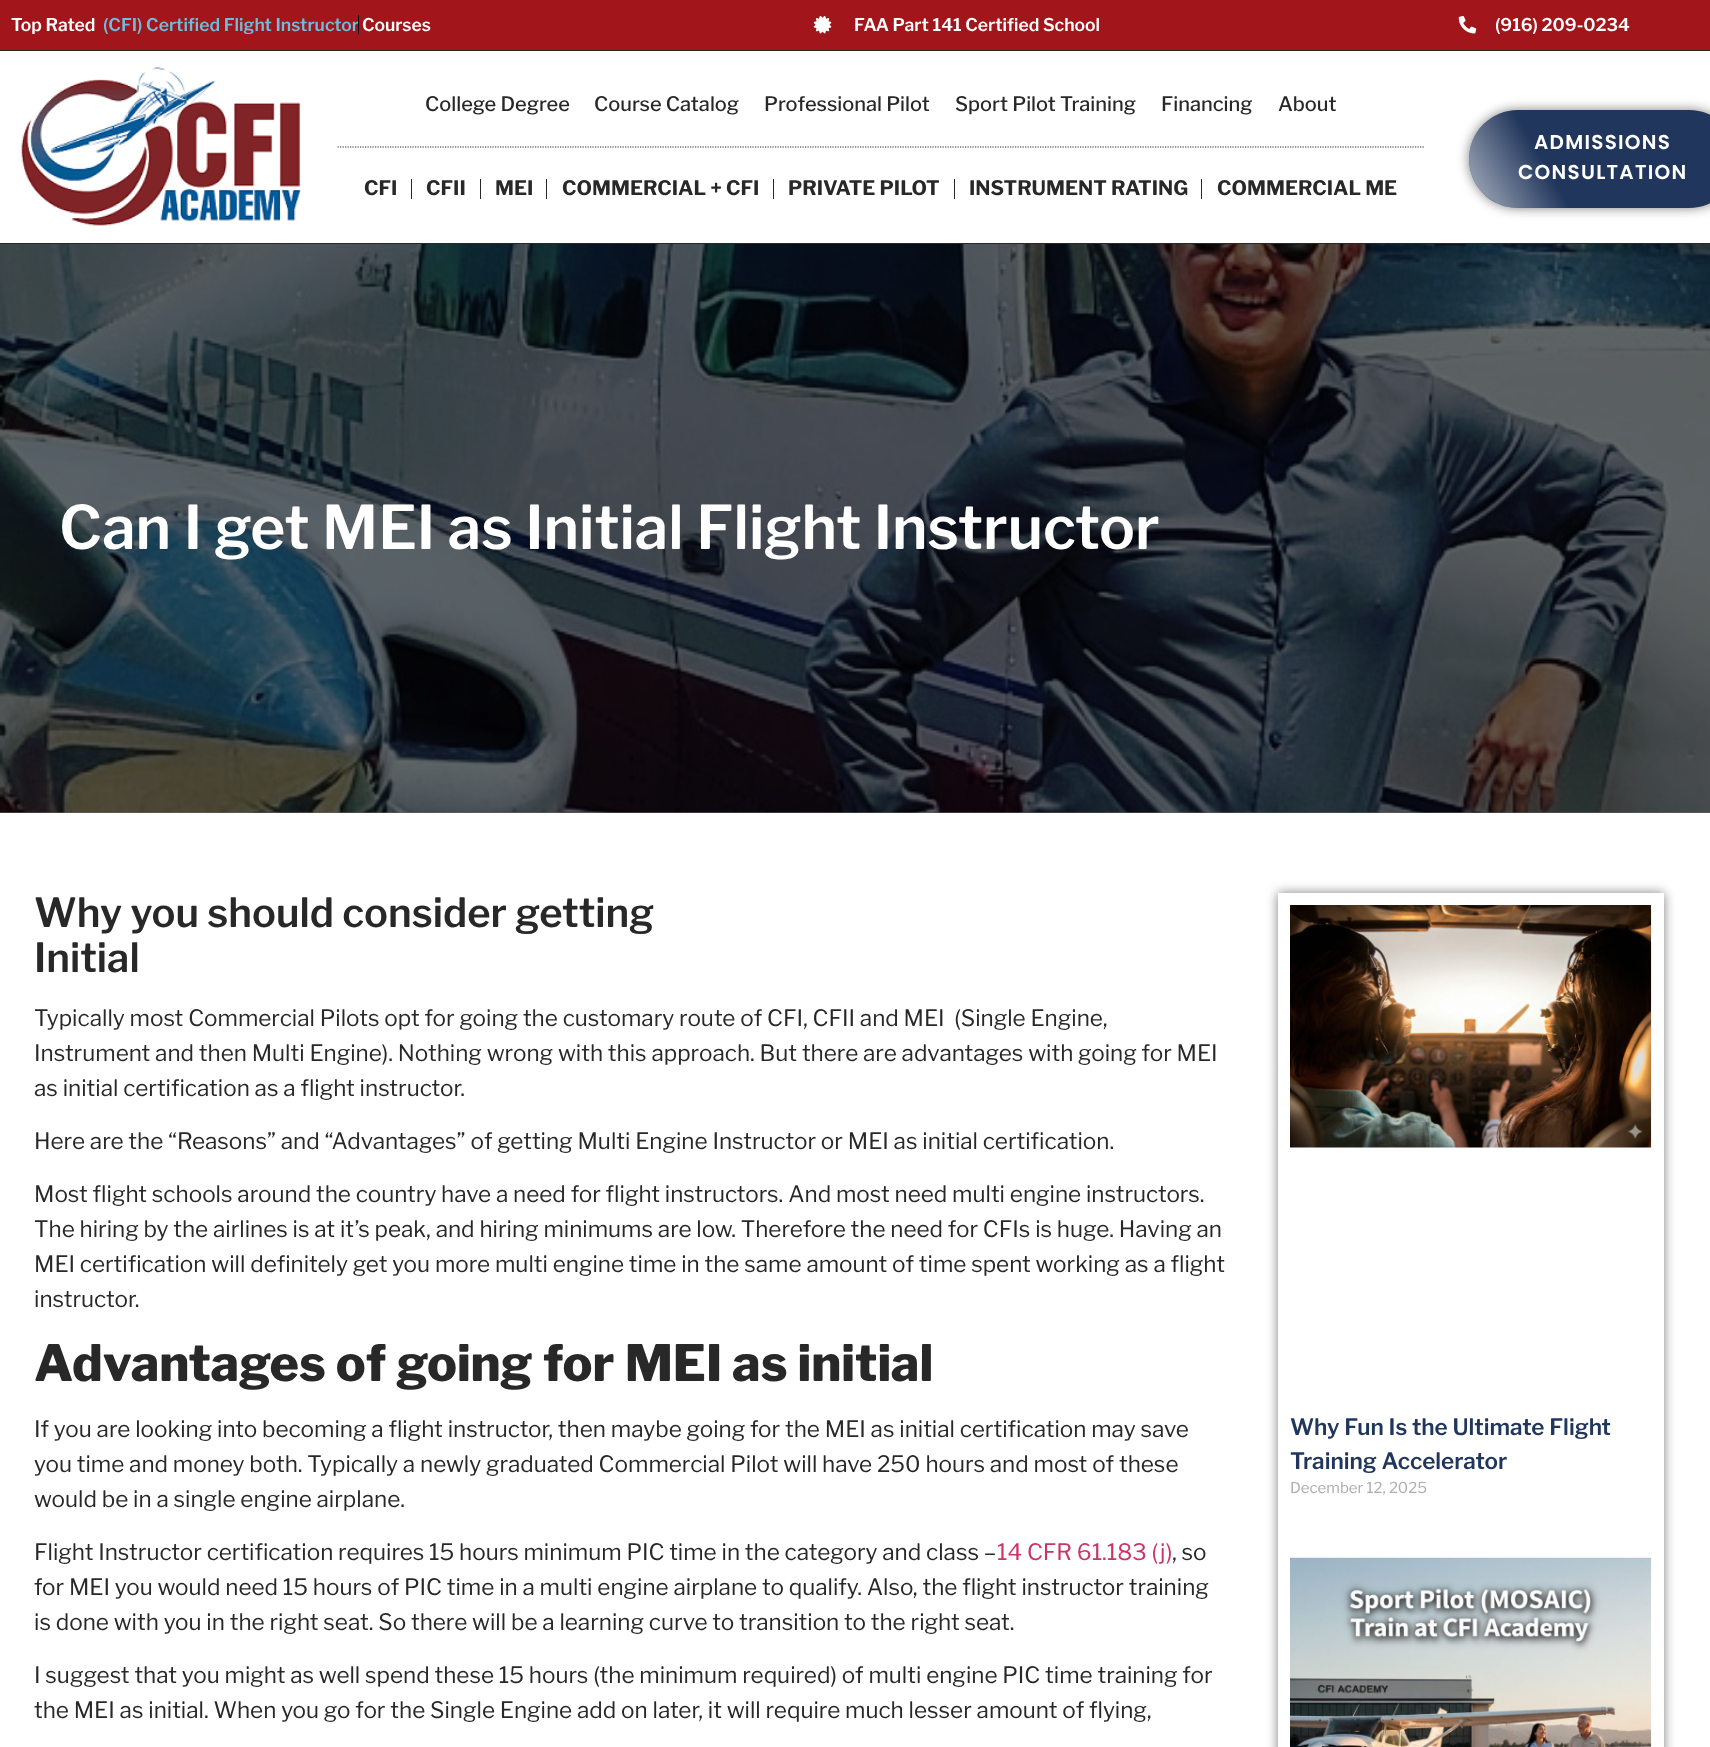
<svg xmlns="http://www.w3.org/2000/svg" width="1710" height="1747">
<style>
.a{font:600 17.5px Libre Franklin;fill:#fff}
.b{font:600 17.5px Libre Franklin;fill:#70bcde}
.c{font:500 20px Libre Franklin;fill:#282828}
.d{font:bold 20px Libre Franklin;fill:#282828}
.e{font:600 20px Poppins;letter-spacing:1.25px;fill:#fff}
.f{font:600 60px Libre Franklin;fill:#fff}
.g{font:600 40px Libre Franklin;fill:#282828}
.h{font:22.5px Libre Franklin;fill:#282828}
.i{font:800 50px Libre Franklin;fill:#282828}
.j{font:22.5px Libre Franklin;fill:#c36}
.k{font:600 22.5px Libre Franklin;fill:#21365c}
.l{font:15px Libre Franklin;fill:#adadad}
</style>
<defs>
<linearGradient id="g1" gradientUnits="userSpaceOnUse" x1="1507" y1="98" x2="1338" y2="195"><stop offset="0" stop-color="#fff" stop-opacity="0"/><stop offset="0.5" stop-color="#fff" stop-opacity="0.7"/><stop offset="1" stop-color="#fff" stop-opacity="0"/></linearGradient>
</defs>
<rect width="100%" height="100%" fill="#fff"/>
<path fill="#666" d="M0 812h1710v1H0z"/>
<path fill="#a2151b" d="M0 0h1710v50H0z"/>
<path fill="#282828" d="M0 50h1710v1H0z"/>
<image href="1.png" x="813" y="15" width="19" height="19"/>
<image href="2.png" x="1458" y="16" width="19" height="18"/>
<path fill="#282828" d="M0 243h1710v1H0z"/>
<image href="3.png" x="21" y="67" width="280" height="159"/>
<path fill="none" stroke="#282828" stroke-width="1.2" stroke-dasharray="1.25 1.25" d="M337.5 147h1086.5"/>
<path fill="#282828" d="M411 179h1v20H411z"/>
<path fill="#282828" d="M480 179h1v20H480z"/>
<path fill="#282828" d="M546 179h1v20H546z"/>
<path fill="#282828" d="M773 179h1v20H773z"/>
<path fill="#282828" d="M954 179h1v20H954z"/>
<path fill="#282828" d="M1201 179h1v20H1201z"/>
<rect fill="#00000080" filter="blur(6px)" x="1469" y="110" width="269" height="98" rx="49"/>
<rect fill="#21365c" x="1469" y="110" width="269" height="98" rx="49"/>
<path fill="url(#g1)" d="M1515 110l56 98h-53c-27 0-49-22-49-49c0-26 20-47 46-49z"/>
<image href="4.png" x="0" y="244" width="1710" height="569"/>
<path fill="#00000080" filter="blur(6px)" d="M1278 893h386v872H1278z"/>
<path fill="#fff" d="M1278 893h386v854H1278z"/>
<image href="5.png" x="1290" y="905" width="362" height="243"/>
<image href="6.png" x="1290" y="1557" width="362" height="190"/>
<text class="a" x="11" y="31">Top Rated</text>
<text class="b" x="103" y="31">(CFI) Certified Flight Instructor</text>
<path fill="#0d0d0d" d="M358 15h1v19H358z"/>
<text class="a" x="362" y="31">Courses</text>
<text class="a" x="854" y="31">FAA Part 141 Certified School</text>
<text class="a" x="1495" y="31">(916) 209-0234</text>
<text class="c" x="425" y="111">College Degree</text>
<text class="c" x="594" y="111">Course Catalog</text>
<text class="c" x="764" y="111">Professional Pilot</text>
<text class="c" x="955" y="111">Sport Pilot Training</text>
<text class="c" x="1161" y="111">Financing</text>
<text class="c" x="1278" y="111">About</text>
<text class="d" x="364" y="195">CFI</text>
<text class="d" x="426" y="195">CFII</text>
<text class="d" x="495" y="195">MEI</text>
<text class="d" x="562" y="195">COMMERCIAL + CFI</text>
<text class="d" x="788" y="195">PRIVATE PILOT</text>
<text class="d" x="969" y="195">INSTRUMENT RATING</text>
<text class="d" x="1217" y="195">COMMERCIAL ME</text>
<text class="e" x="1534" y="149">ADMISSIONS</text>
<text class="e" x="1518" y="179">CONSULTATION</text>
<text class="f" x="59" y="549">Can I get MEI as Initial Flight Instructor</text>
<text class="g" x="34" y="927">Why you should consider getting</text>
<text class="g" x="34" y="972">Initial</text>
<text class="h" xml:space="preserve" x="34" y="1026">Typically most Commercial Pilots opt for going the customary route of CFI, CFII and MEI  (Single Engine,</text>
<text class="h" x="34" y="1061">Instrument and then Multi Engine). Nothing wrong with this approach. But there are advantages with going for MEI</text>
<text class="h" x="34" y="1096">as initial certification as a flight instructor.</text>
<text class="h" x="34" y="1149">Here are the “Reasons” and “Advantages” of getting Multi Engine Instructor or MEI as initial certification.</text>
<text class="h" x="34" y="1202">Most flight schools around the country have a need for flight instructors. And most need multi engine instructors.</text>
<text class="h" x="34" y="1237">The hiring by the airlines is at it’s peak, and hiring minimums are low. Therefore the need for CFIs is huge. Having an</text>
<text class="h" x="34" y="1272">MEI certification will definitely get you more multi engine time in the same amount of time spent working as a flight</text>
<text class="h" x="34" y="1307">instructor.</text>
<text class="i" x="34" y="1381">Advantages of going for MEI as initial</text>
<text class="h" x="34" y="1437">If you are looking into becoming a flight instructor, then maybe going for the MEI as initial certification may save</text>
<text class="h" x="34" y="1472">you time and money both. Typically a newly graduated Commercial Pilot will have 250 hours and most of these</text>
<text class="h" x="34" y="1507">would be in a single engine airplane.</text>
<text class="h" x="34" y="1560">Flight Instructor certification requires 15 hours minimum PIC time in the category and class –</text>
<text class="j" x="997" y="1560">14 CFR 61.183 (j)</text>
<text class="h" x="1172" y="1560">, so</text>
<text class="h" x="34" y="1595">for MEI you would need 15 hours of PIC time in a multi engine airplane to qualify. Also, the flight instructor training</text>
<text class="h" x="34" y="1630">is done with you in the right seat. So there will be a learning curve to transition to the right seat.</text>
<text class="h" x="34" y="1683">I suggest that you might as well spend these 15 hours (the minimum required) of multi engine PIC time training for</text>
<text class="h" x="34" y="1718">the MEI as initial. When you go for the Single Engine add on later, it will require much lesser amount of flying,</text>
<text class="k" x="1290" y="1435">Why Fun Is the Ultimate Flight</text>
<text class="k" x="1290" y="1469">Training Accelerator</text>
<text class="l" x="1290" y="1493">December 12, 2025</text>
</svg>
